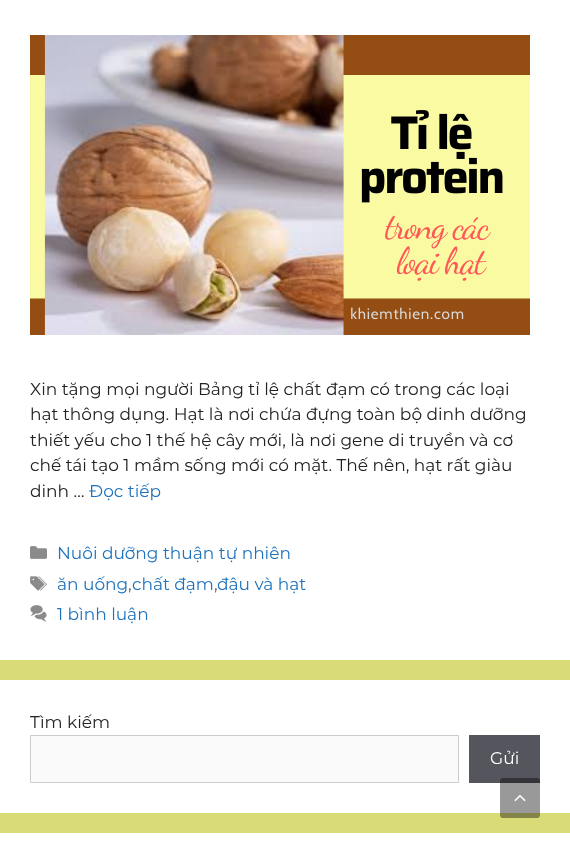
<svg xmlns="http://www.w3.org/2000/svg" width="570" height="848">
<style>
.a{font:17px Montserrat;fill:#222}
.b{font:17px Montserrat;fill:#1e73be}
.c{font:17px Montserrat;fill:#595959}
.d{font:17px Montserrat;fill:#fff}
</style>
<rect width="100%" height="100%" fill="#d9db76"/>
<path fill="#fff" d="M0 0h570v660H0z"/>
<image href="1.png" x="30" y="35" width="500" height="300"/>
<image href="2.png" x="30" y="546" width="17" height="13"/>
<image href="3.png" x="30" y="576" width="17" height="15"/>
<image href="4.png" x="30" y="605" width="17" height="17"/>
<path fill="#fff" d="M0 680h570v133H0z"/>
<path fill="#fafafa" stroke="#ccc" d="M30.5 735.5h428v47H30.5z"/>
<path fill="#55555e" d="M469 735h71v48H469z"/>
<path fill="#fff" d="M0 833h570v15H0z"/>
<rect fill="#00000066" x="500" y="778" width="40" height="40" rx="3"/>
<image href="5.png" x="514" y="794" width="12" height="8"/>
<text class="a" x="30" y="395">Xin tặng mọi người Bảng tỉ lệ chất đạm có trong các loại</text>
<text class="a" x="30" y="420">hạt thông dụng. Hạt là nơi chứa đựng toàn bộ dinh dưỡng</text>
<text class="a" x="30" y="446">thiết yếu cho 1 thế hệ cây mới, là nơi gene di truyền và cơ</text>
<text class="a" x="30" y="471">chế tái tạo 1 mầm sống mới có mặt. Thế nên, hạt rất giàu</text>
<text class="a" x="30" y="497">dinh …</text>
<text class="b" x="89" y="497">Đọc tiếp</text>
<text class="b" x="57" y="559">Nuôi dưỡng thuận tự nhiên</text>
<text class="b" x="57" y="590">ăn uống</text>
<text class="c" x="128" y="590">,</text>
<text class="b" x="132" y="590">chất đạm</text>
<text class="c" x="214" y="590">,</text>
<text class="b" x="217" y="590">đậu và hạt</text>
<text class="b" x="57" y="620">1 bình luận</text>
<text class="a" x="30" y="728">Tìm kiếm</text>
<text class="d" x="490" y="764">Gửi</text>
</svg>
